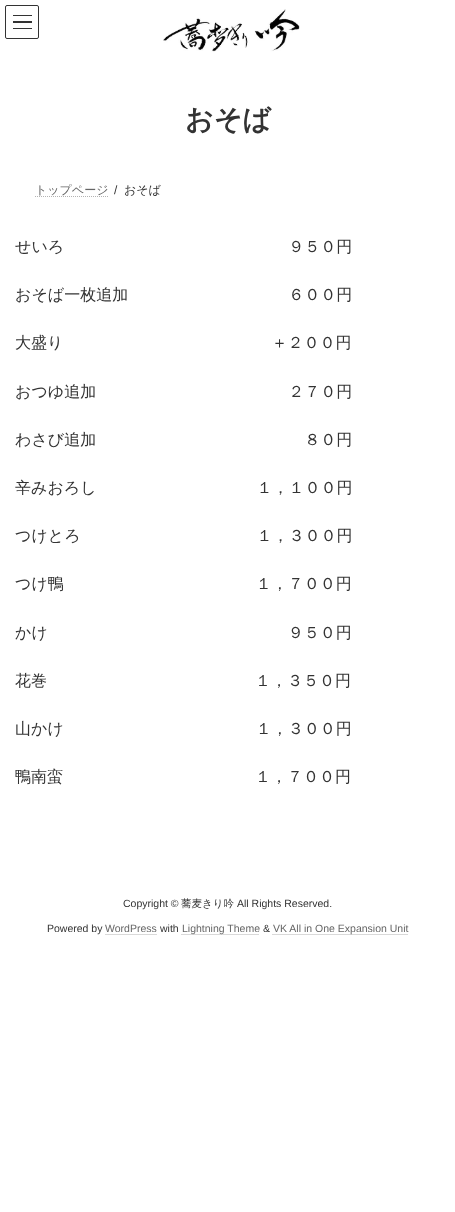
<svg xmlns="http://www.w3.org/2000/svg" width="455" height="1212">
<style>
.a{font:bold 28px WenQuanYi Zen Hei;fill:#333}
.b{font:500 12px WenQuanYi Zen Hei;fill:#666}
.c{font:12px Liberation Sans;fill:#333}
.d{font:500 12px WenQuanYi Zen Hei;fill:#333}
.e{font:500 16px WenQuanYi Zen Hei;fill:#333}
.f{font:10.5px Liberation Sans;fill:#333}
.g{font:500 10.5px WenQuanYi Zen Hei;fill:#333}
.h{font:10.5px Liberation Sans;fill:#666}
</style>
<rect width="100%" height="100%" fill="#fff"/>
<path fill="#333" d="M13 15h19v1H13z"/>
<path fill="#333" d="M13 21h19v2H13z"/>
<path fill="#333" d="M13 28h19v1H13z"/>
<rect fill="none" stroke="#333" x="5.5" y="5.5" width="33" height="33" rx="1.5"/>
<image href="1.png" x="163" y="9" width="137" height="43"/>
<path fill="none" stroke="#b3b3b3" stroke-dasharray="1 1" d="M35 196.5h73"/>
<path fill="none" stroke="#b3b3b3" stroke-dasharray="1 1" d="M105.5 934.5h51.5"/>
<path fill="none" stroke="#b3b3b3" stroke-dasharray="1 1" d="M181.5 934.5h78"/>
<path fill="none" stroke="#b3b3b3" stroke-dasharray="1 1" d="M272.5 934.5h135.5"/>
<text class="a" x="185" y="129">おそば</text>
<text class="b" x="35" y="194">トップページ</text>
<text class="c" x="114" y="194">/</text>
<text class="d" x="124" y="194">おそば</text>
<text class="e" x="15" y="252">せいろ　　　　　　　　　　　　　　９５０円</text>
<text class="e" x="15" y="300">おそば一枚追加　　　　　　　　　　６００円</text>
<text class="e" x="15" y="348">大盛り　　　　　　　　　　　　　＋２００円</text>
<text class="e" x="15" y="397">おつゆ追加　　　　　　　　　　　　２７０円</text>
<text class="e" x="15" y="445">わさび追加　　　　　　　　　　　　　８０円</text>
<text class="e" x="15" y="493">辛みおろし　　　　　　　　　　１，１００円</text>
<text class="e" x="15" y="541">つけとろ　　　　　　　　　　　１，３００円</text>
<text class="e" x="15" y="589">つけ鴨　　　　　　　　　　　　１，７００円</text>
<text class="e" x="15" y="638">かけ　　　　　　　　　　　　　　　９５０円</text>
<text class="e" x="15" y="686">花巻　　　　　　　　　　　　　１，３５０円</text>
<text class="e" x="15" y="734">山かけ　　　　　　　　　　　　１，３００円</text>
<text class="e" x="15" y="782">鴨南蛮　　　　　　　　　　　　１，７００円</text>
<text class="f" x="123" y="907">Copyright ©</text>
<text class="g" x="181" y="907">蕎麦きり吟</text>
<text class="f" x="237" y="907">All Rights Reserved.</text>
<text class="f" x="47" y="932">Powered by</text>
<text class="h" x="105" y="932">WordPress</text>
<text class="f" x="160" y="932">with</text>
<text class="h" x="182" y="932">Lightning Theme</text>
<text class="f" x="263" y="932">&amp;</text>
<text class="h" x="273" y="932">VK All in One Expansion Unit</text>
</svg>
